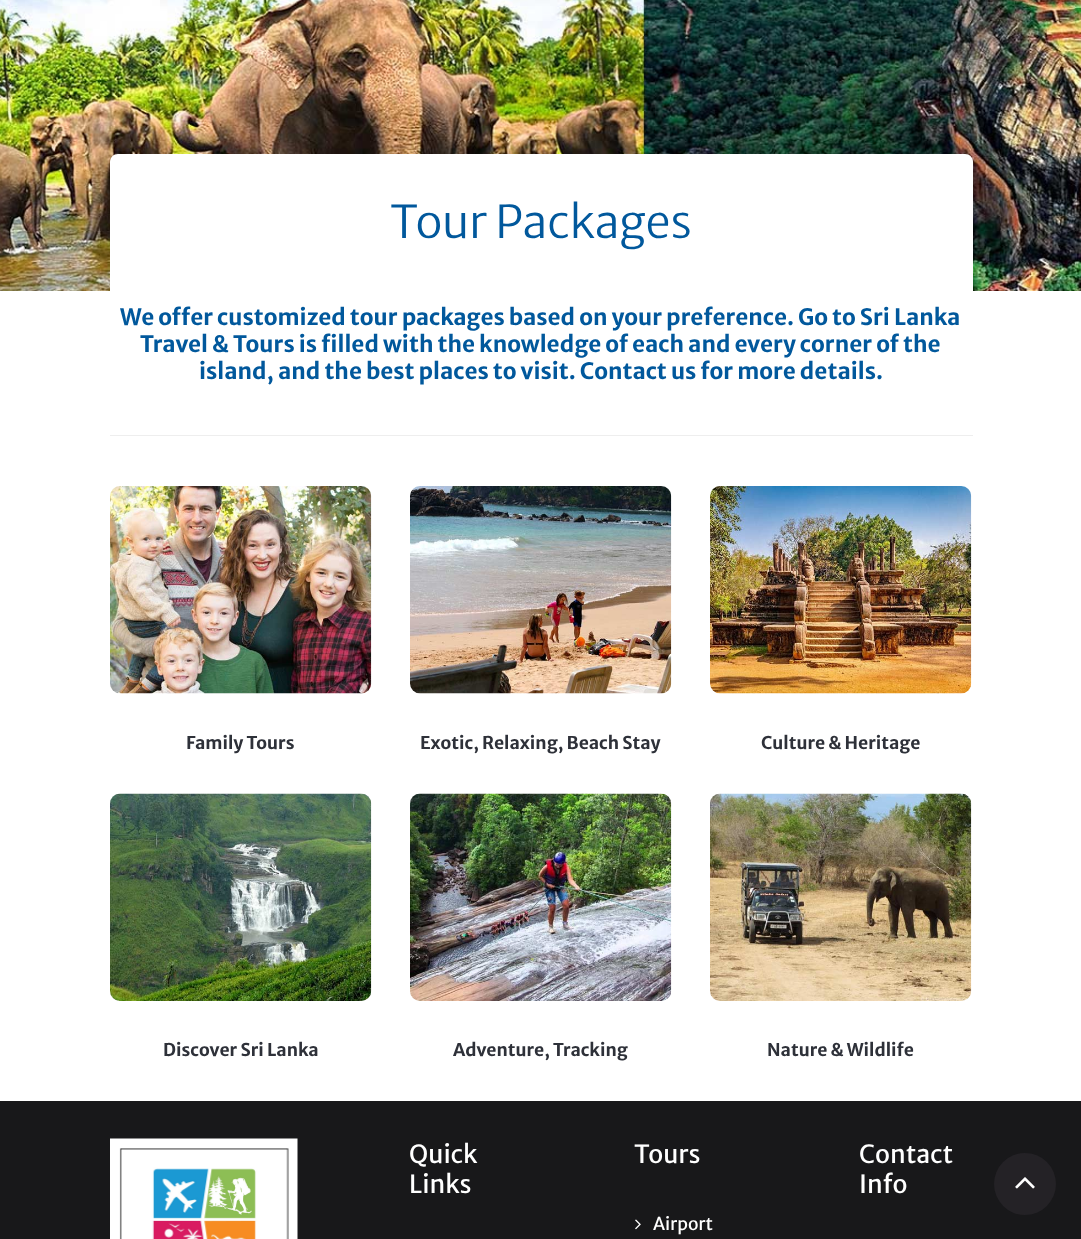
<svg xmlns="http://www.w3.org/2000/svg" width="1081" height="1239">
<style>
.a{font:300 45px Merriweather Sans;fill:#01589c}
.b{font:bold 22.5px Merriweather Sans;fill:#01589c}
.c{font:bold 17.5px Merriweather Sans;fill:#2e3139}
.d{font:25px Merriweather Sans;fill:#fff}
.e{font:17.5px Merriweather Sans;fill:#fff}
</style>
<rect width="100%" height="100%" fill="#fff"/>
<image href="1.png" x="0" y="0" width="1081" height="291"/>
<path fill="#fff" d="M118 154h847c4.5 0 8 3.5 8 8v129h-863v-129c0-4.5 3.5-8 8-8z"/>
<path fill="#eee" d="M110 435h863v1H110z"/>
<image href="2.png" x="110" y="486" width="262" height="208"/>
<image href="3.png" x="410" y="486" width="262" height="208"/>
<image href="4.png" x="710" y="486" width="262" height="208"/>
<image href="5.png" x="110" y="793" width="262" height="208"/>
<image href="6.png" x="410" y="793" width="262" height="208"/>
<image href="7.png" x="710" y="793" width="262" height="208"/>
<path fill="#18181a" d="M0 1101h1081v138H0z"/>
<image href="8.png" x="110" y="1138" width="188" height="101"/>
<image href="9.png" x="635" y="1219" width="6" height="11"/>
<circle fill="#242226" cx="1025" cy="1184" r="31"/>
<image href="10.png" x="1015" y="1177" width="20" height="12"/>
<text class="a" x="390" y="238">Tour Packages</text>
<text class="b" x="120" y="325">We offer customized tour packages based on your preference. Go to Sri Lanka</text>
<text class="b" x="140" y="352">Travel &amp; Tours is filled with the knowledge of each and every corner of the</text>
<text class="b" x="199" y="379">island, and the best places to visit. Contact us for more details.</text>
<text class="c" x="186" y="749">Family Tours</text>
<text class="c" x="420" y="749">Exotic, Relaxing, Beach Stay</text>
<text class="c" x="761" y="749">Culture &amp; Heritage</text>
<text class="c" x="163" y="1056">Discover Sri Lanka</text>
<text class="c" x="453" y="1056">Adventure, Tracking</text>
<text class="c" x="767" y="1056">Nature &amp; Wildlife</text>
<text class="d" x="409" y="1163">Quick</text>
<text class="d" x="409" y="1193">Links</text>
<text class="d" x="634" y="1163">Tours</text>
<text class="e" x="653" y="1230">Airport</text>
<text class="d" x="859" y="1163">Contact</text>
<text class="d" x="859" y="1193">Info</text>
</svg>
